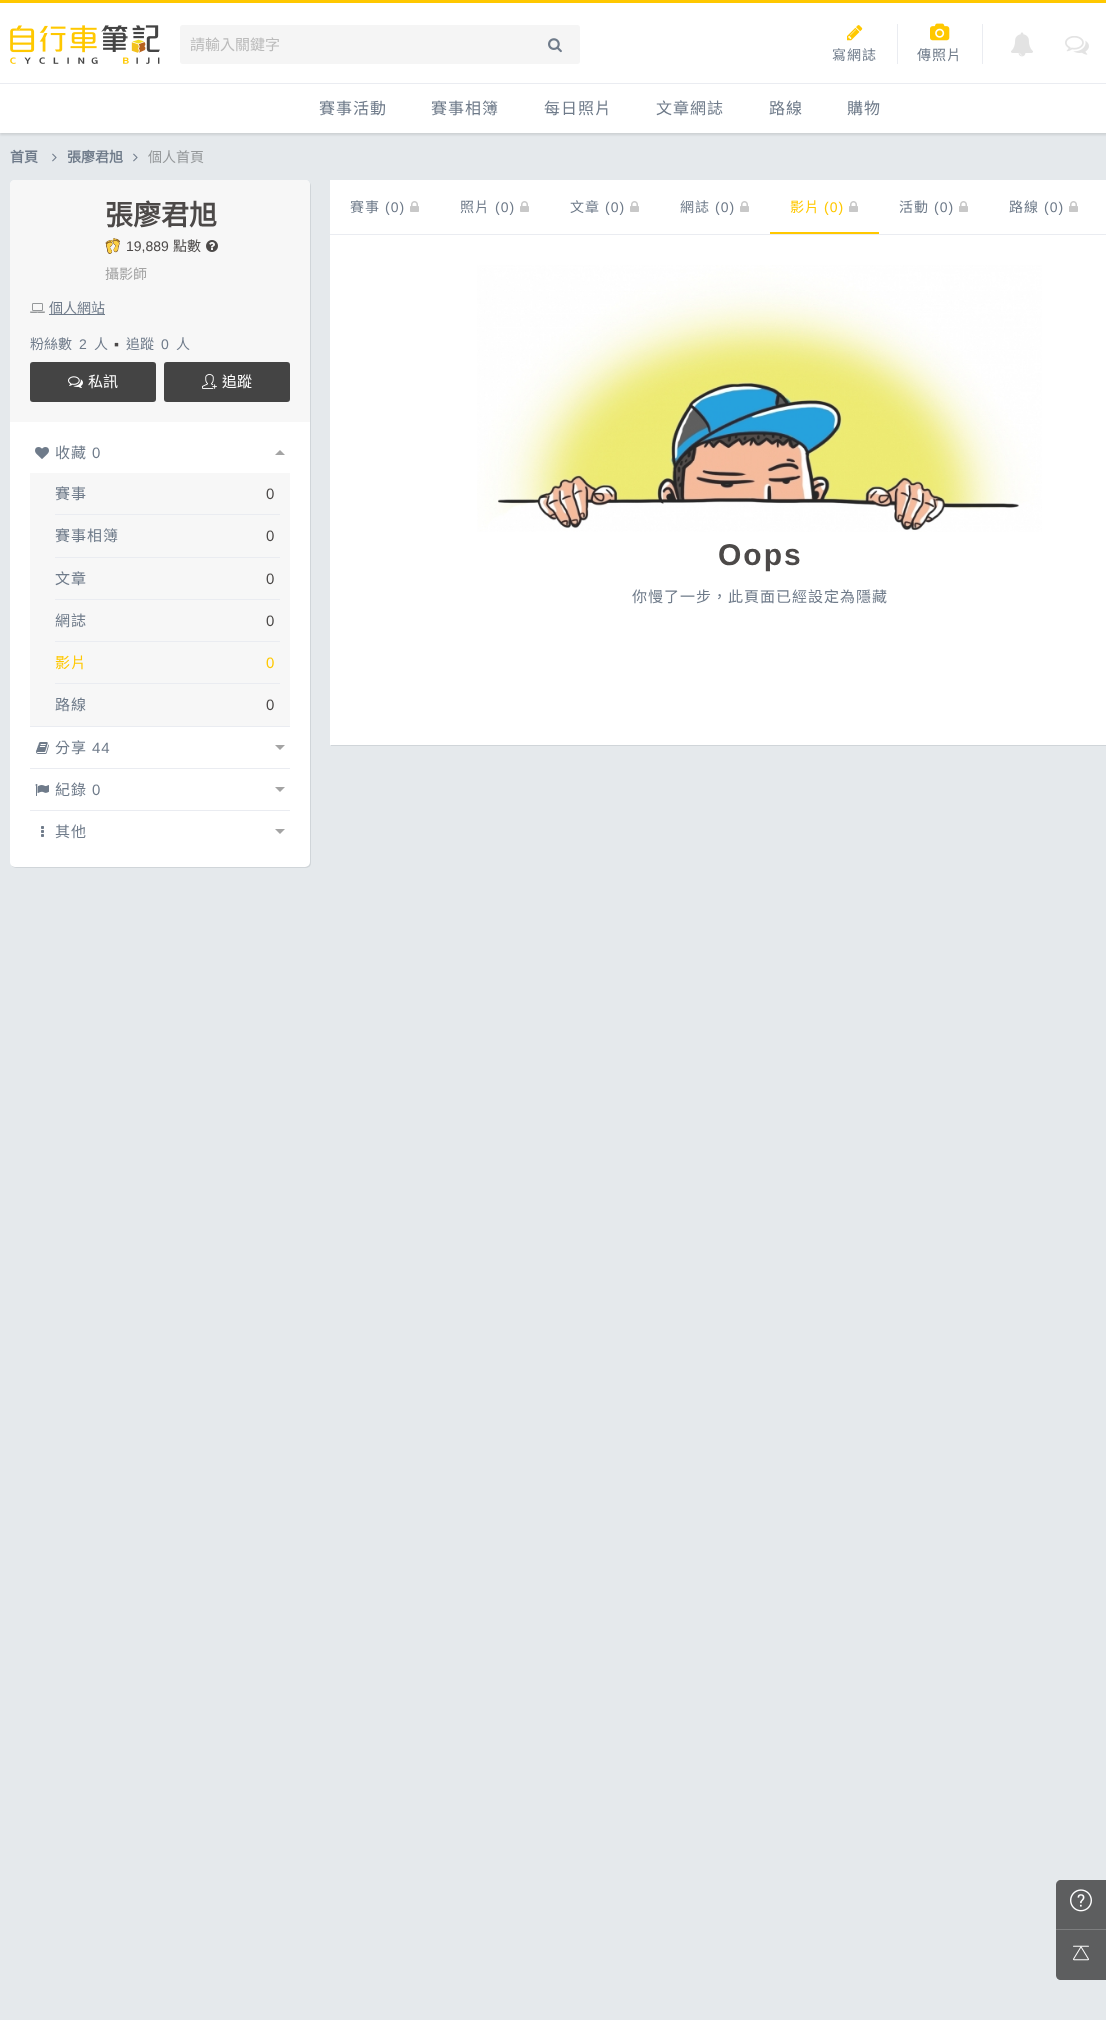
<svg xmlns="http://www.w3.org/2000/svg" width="1106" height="2020">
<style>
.a{font:15px Noto Sans CJK TC;fill:#bbb}
.b{font:14px Noto Sans CJK TC;letter-spacing:1px;fill:#6f7b8a}
.c{font:16px Noto Sans CJK TC;letter-spacing:1px;fill:#6f7b8a}
.d{font:bold 14px Noto Sans CJK TC;fill:#6f7b8a}
.e{font:14px Noto Sans CJK TC;fill:#95989a}
.f{font:bold 28px Noto Sans CJK TC;fill:#4c4948}
.g{font:14px Liberation Sans;fill:#4c4948}
.h{font:14px Noto Sans CJK TC;fill:#4c4948}
.i{font:14px Noto Sans CJK TC;fill:#a4a4a4}
.j{font:14px Noto Sans CJK TC;fill:#6f7b8a}
.k{font:14px Liberation Sans;fill:#6f7b8a}
.l{font:15px Noto Sans CJK TC;fill:#fff}
.m{font:15px Noto Sans CJK TC;letter-spacing:1px;fill:#6f7b8a}
.n{font:15px Liberation Sans;letter-spacing:1px;fill:#6f7b8a}
.o{font:15px Liberation Sans;letter-spacing:1px;fill:#4c4948}
.p{font:15px Noto Sans CJK TC;letter-spacing:1px;fill:#ffc800}
.q{font:15px Liberation Sans;letter-spacing:1px;fill:#ffc800}
.r{font:14px Liberation Sans;letter-spacing:1px;fill:#6f7b8a}
.s{font:14px Noto Sans CJK TC;letter-spacing:1px;fill:#ffc800}
.t{font:14px Liberation Sans;letter-spacing:1px;fill:#ffc800}
.u{font:bold 30px Liberation Sans;letter-spacing:2px;fill:#4c4948}
</style>
<rect width="100%" height="100%" fill="#e5e9ec"/>
<path fill="#ffc800" d="M0 0h1106v3H0z"/>
<path fill="#0000001a" filter="blur(1px)" d="M0 5h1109v130H0z"/>
<path fill="#fff" d="M0 3h1106v130H0z"/>
<path fill="#eaecf1" d="M0 83h1106v1H0z"/>
<image href="1.png" x="10" y="25" width="150" height="39"/>
<rect fill="#f5f5f5" x="180" y="25" width="400" height="39" rx="3"/>
<image href="2.png" x="548" y="38" width="14" height="15"/>
<image href="3.png" x="847" y="25" width="16" height="16"/>
<path fill="#eaecf1" d="M897 24h1v40H897z"/>
<image href="4.png" x="930" y="23" width="20" height="18"/>
<path fill="#eaecf1" d="M982 24h1v40H982z"/>
<image href="5.png" x="1011" y="32" width="22" height="25"/>
<image href="6.png" x="1065" y="36" width="24" height="19"/>
<image href="7.png" x="52" y="153" width="5" height="9"/>
<image href="7.png" x="133" y="153" width="5" height="9"/>
<rect fill="#22262e1a" filter="blur(0.5px)" x="11" y="181" width="300" height="687" rx="5"/>
<rect fill="#fff" x="10" y="180" width="300" height="687" rx="5"/>
<path fill="#f7f7f7" d="M15 180h290c3 0 5 2 5 5v237h-300v-237c0-3 2-5 5-5z"/>
<image href="8.png" x="105" y="238" width="15" height="16"/>
<image href="9.png" x="206" y="240" width="12" height="12"/>
<image href="10.png" x="30" y="303" width="15" height="10"/>
<path fill="#6f7b8a" d="M49 314h56v1H49z"/>
<rect fill="#444" x="30" y="362" width="126" height="40" rx="3"/>
<image href="11.png" x="68" y="376" width="15" height="12"/>
<rect fill="#444" x="164" y="362" width="126" height="40" rx="3"/>
<image href="12.png" x="202" y="373" width="15" height="16"/>
<image href="13.png" x="35" y="447" width="14" height="12"/>
<path fill="#a4a4a4" d="M285 455h-10l5-5z"/>
<path fill="#f7f7f7" d="M30 473h260v253H30z"/>
<path fill="#eaecf1" d="M55 514h225v1H55z"/>
<path fill="#eaecf1" d="M55 557h225v1H55z"/>
<path fill="#eaecf1" d="M55 599h225v1H55z"/>
<path fill="#eaecf1" d="M55 641h225v1H55z"/>
<path fill="#eaecf1" d="M55 683h225v1H55z"/>
<path fill="#eaecf1" d="M30 726h260v1H30z"/>
<image href="14.png" x="36" y="742" width="13" height="12"/>
<path fill="#a4a4a4" d="M275 745h10l-5 5z"/>
<path fill="#eaecf1" d="M30 768h260v1H30z"/>
<image href="15.png" x="35" y="784" width="14" height="12"/>
<path fill="#a4a4a4" d="M275 787h10l-5 5z"/>
<path fill="#eaecf1" d="M30 810h260v1H30z"/>
<image href="16.png" x="41" y="826" width="3" height="11"/>
<path fill="#a4a4a4" d="M275 829h10l-5 5z"/>
<path fill="#22262e1a" filter="blur(0.5px)" d="M331 181h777v565H331z"/>
<path fill="#fff" d="M330 180h776v565H330z"/>
<path fill="#eaecf1" d="M330 234h776v1H330z"/>
<image href="17.png" x="410" y="201" width="9" height="11"/>
<image href="17.png" x="520" y="201" width="9" height="11"/>
<image href="17.png" x="630" y="201" width="9" height="11"/>
<image href="17.png" x="740" y="201" width="9" height="11"/>
<image href="17.png" x="849" y="201" width="9" height="11"/>
<path fill="#ffc800" d="M770 232h109v2H770z"/>
<image href="17.png" x="959" y="201" width="9" height="11"/>
<image href="17.png" x="1069" y="201" width="9" height="11"/>
<image href="18.png" x="477" y="265" width="565" height="267"/>
<path fill="#5d5e5f" d="M1061 1880h45v100h-45c-3 0-5-2-5-5v-90c0-3 2-5 5-5z"/>
<path fill="#7d7e7f" d="M1056 1929h50v1H1056z"/>
<image href="19.png" x="1070" y="1889" width="22" height="23"/>
<image href="20.png" x="1073" y="1945" width="16" height="16"/>
<text class="a" x="190" y="50">請輸入關鍵字</text>
<text class="b" x="832" y="60">寫網誌</text>
<text class="b" x="917" y="60">傳照片</text>
<text class="c" x="319" y="114">賽事活動</text>
<text class="c" x="431" y="114">賽事相簿</text>
<text class="c" x="544" y="114">每日照片</text>
<text class="c" x="656" y="114">文章網誌</text>
<text class="c" x="769" y="114">路線</text>
<text class="c" x="847" y="114">購物</text>
<text class="d" x="10" y="162">首頁</text>
<text class="d" x="67" y="162">張廖君旭</text>
<text class="e" x="148" y="162">個人首頁</text>
<text class="f" x="105" y="225">張廖君旭</text>
<text class="g" x="126" y="251">19,889</text>
<text class="h" x="173" y="251">點數</text>
<text class="i" x="105" y="279">攝影師</text>
<text class="j" x="49" y="313">個人網站</text>
<text class="j" x="30" y="349">粉絲數</text>
<text class="k" x="79" y="349">2</text>
<text class="j" x="94" y="349">人</text>
<text class="g" x="114" y="349">▪</text>
<text class="j" x="126" y="349">追蹤</text>
<text class="k" x="161" y="349">0</text>
<text class="j" x="176" y="349">人</text>
<text class="l" x="88" y="387">私訊</text>
<text class="l" x="222" y="387">追蹤</text>
<text class="m" x="55" y="458">收藏</text>
<text class="n" x="92" y="458">0</text>
<text class="m" x="55" y="499">賽事</text>
<text class="o" x="266" y="499">0</text>
<text class="m" x="55" y="541">賽事相簿</text>
<text class="o" x="266" y="541">0</text>
<text class="m" x="55" y="584">文章</text>
<text class="o" x="266" y="584">0</text>
<text class="m" x="55" y="626">網誌</text>
<text class="o" x="266" y="626">0</text>
<text class="p" x="55" y="668">影片</text>
<text class="q" x="266" y="668">0</text>
<text class="m" x="55" y="710">路線</text>
<text class="o" x="266" y="710">0</text>
<text class="m" x="55" y="753">分享</text>
<text class="n" x="92" y="753">44</text>
<text class="m" x="55" y="795">紀錄</text>
<text class="n" x="92" y="795">0</text>
<text class="m" x="55" y="837">其他</text>
<text class="b" x="350" y="212">賽事</text>
<text class="r" x="385" y="212">(0)</text>
<text class="b" x="460" y="212">照片</text>
<text class="r" x="495" y="212">(0)</text>
<text class="b" x="570" y="212">文章</text>
<text class="r" x="605" y="212">(0)</text>
<text class="b" x="680" y="212">網誌</text>
<text class="r" x="715" y="212">(0)</text>
<text class="s" x="790" y="212">影片</text>
<text class="t" x="824" y="212">(0)</text>
<text class="b" x="899" y="212">活動</text>
<text class="r" x="934" y="212">(0)</text>
<text class="b" x="1009" y="212">路線</text>
<text class="r" x="1044" y="212">(0)</text>
<text class="u" x="718" y="565">Oops</text>
<text class="m" x="632" y="602">你慢了一步，此頁面已經設定為隱藏</text>
</svg>
